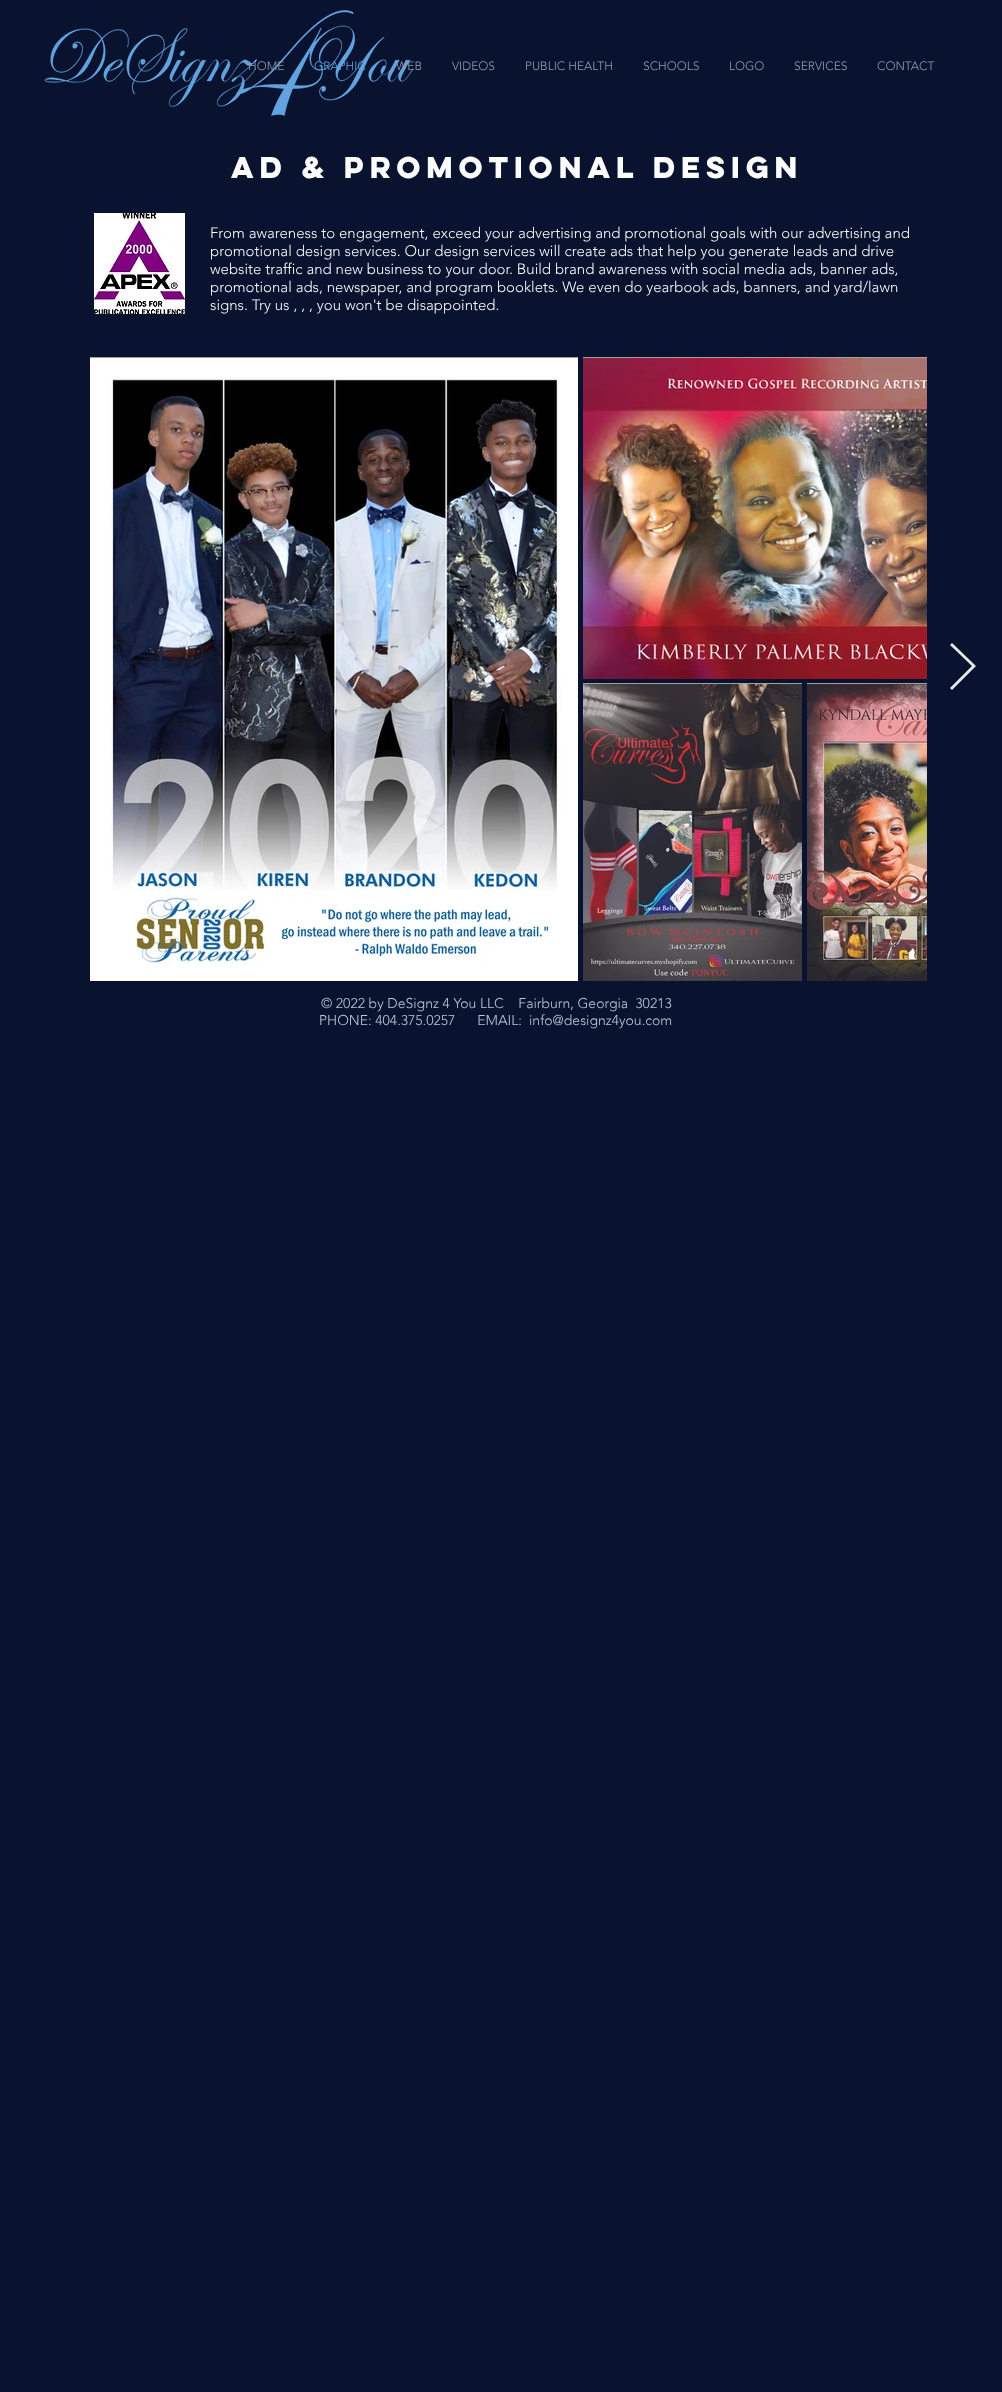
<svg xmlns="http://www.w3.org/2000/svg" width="1002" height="2392">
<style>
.a{font:300 12px 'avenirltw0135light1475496';fill:#939dab}
.b{font:300 12px 'avenirltw0135light1475496';fill:#62a3e0}
.c{font:bold 27px 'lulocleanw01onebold';fill:#fcfcfc}
.d{font:300 15px 'avenirltw0135light1475496';fill:#fcfcfc}
.e{font:300 14px 'avenirltw0135light1475496';fill:#bec7d5}
</style>
<rect width="100%" height="100%" fill="#091330"/>
<image href="1.png" x="44" y="10" width="370" height="106"/>
<image href="2.png" x="94" y="213" width="91" height="101"/>
<path fill="#a0a09f" d="M90 357h488v1H90z"/>
<image href="3.png" x="90" y="358" width="488" height="623"/>
<path fill="#a0a09f" d="M583 357h344v1H583z"/>
<image href="4.png" x="583" y="358" width="344" height="321"/>
<path fill="#a0a09f" d="M583 683h219v1H583z"/>
<image href="5.png" x="583" y="684" width="219" height="297"/>
<path fill="#a0a09f" d="M807 683h120v1H807z"/>
<image href="6.png" x="807" y="684" width="120" height="297"/>
<path fill="#e6e7ea" d="M950 645l2-2l24 23l-24 24l-2-2l22-22z"/>
<text class="a" x="248" y="70">HOME</text>
<text class="b" x="314" y="70">GRAPHIC</text>
<text class="a" x="396" y="70">WEB</text>
<text class="a" x="452" y="70">VIDEOS</text>
<text class="a" x="525" y="70">PUBLIC HEALTH</text>
<text class="a" x="643" y="70">SCHOOLS</text>
<text class="a" x="729" y="70">LOGO</text>
<text class="a" x="794" y="70">SERVICES</text>
<text class="a" x="877" y="70">CONTACT</text>
<text class="c" x="231" y="178">ad &amp; promotional design</text>
<text class="d" x="210" y="238">From awareness to engagement, exceed your advertising and promotional goals with our advertising and</text>
<text class="d" x="210" y="256">promotional design services. Our design services will create ads that help you generate leads and drive</text>
<text class="d" x="210" y="274">website traffic and new business to your door. Build brand awareness with social media ads, banner ads,</text>
<text class="d" x="210" y="292">promotional ads, newspaper, and program booklets. We even do yearbook ads, banners, and yard/lawn</text>
<text class="d" x="210" y="310">signs. Try us , , , you won't be disappointed.</text>
<text class="e" xml:space="preserve" x="321" y="1008">© 2022 by DeSignz 4 You LLC    Fairburn, Georgia  30213</text>
<text class="e" xml:space="preserve" x="319" y="1025">PHONE: 404.375.0257      EMAIL:</text>
<text class="e" x="529" y="1025">info@designz4you.com</text>
</svg>
